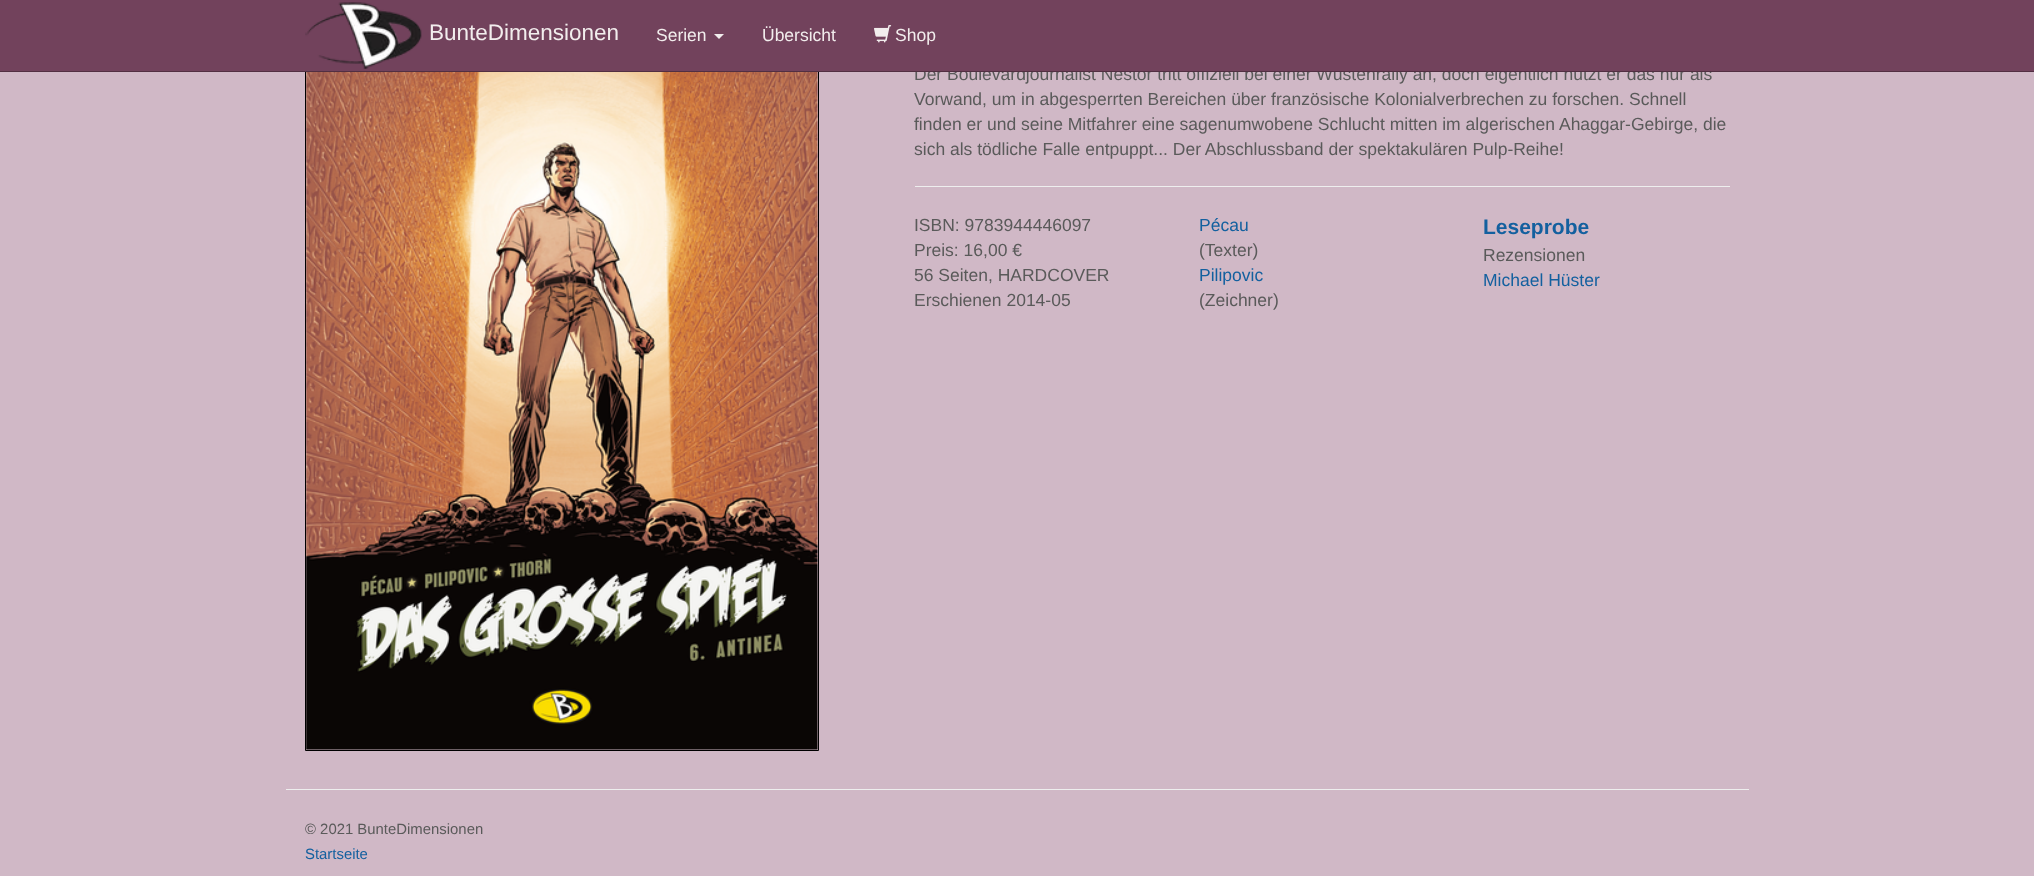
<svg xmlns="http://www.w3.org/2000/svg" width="2034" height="876">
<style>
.a{font:17.5px Liberation Sans;fill:#5a5a5a}
.b{font:17.5px Liberation Sans;fill:#f2eded}
.c{font:22.5px Liberation Sans;fill:#f2eded}
.d{font:17.5px Liberation Sans;fill:#13609f}
.e{font:bold 21px Liberation Sans;fill:#13609f}
.f{font:14.9px Liberation Sans;fill:#5a5a5a}
.g{font:14.9px Liberation Sans;fill:#13609f}
</style>
<rect width="100%" height="100%" fill="#d0b8c6"/>
<path fill="none" stroke="#000" d="M305.5 61.5h513v689H305.5z"/>
<image href="3.png" x="306" y="72" width="512" height="678"/>
<path fill="#eee" d="M915 186h815v1H915z"/>
<path fill="#eee" d="M286 789h1463v1H286z"/>
<text class="a" x="914" y="80">Der Boulevardjournalist Nestor tritt offiziell bei einer Wüstenrally an, doch eigentlich nutzt er das nur als</text>
<path fill="#72425c" d="M0 0h2034v71H0z"/>
<image href="2.png" x="874" y="25" width="18" height="18"/>
<text class="b" x="895" y="41">Shop</text>
<text class="b" x="762" y="41">Übersicht</text>
<path fill="#f2eded" d="M714 34h10l-5 5z"/>
<text class="b" x="656" y="41">Serien</text>
<text class="c" x="429" y="40">BunteDimensionen</text>
<image href="1.png" x="305" y="2" width="117" height="67"/>
<path fill="#522f42" d="M0 71h2034v1H0z"/>
<text class="a" x="914" y="105">Vorwand, um in abgesperrten Bereichen über französische Kolonialverbrechen zu forschen. Schnell</text>
<text class="a" x="914" y="130">finden er und seine Mitfahrer eine sagenumwobene Schlucht mitten im algerischen Ahaggar-Gebirge, die</text>
<text class="a" x="914" y="155">sich als tödliche Falle entpuppt... Der Abschlussband der spektakulären Pulp-Reihe!</text>
<text class="a" x="914" y="231">ISBN: 9783944446097</text>
<text class="a" x="914" y="256">Preis: 16,00 €</text>
<text class="a" x="914" y="281">56 Seiten, HARDCOVER</text>
<text class="a" x="914" y="306">Erschienen 2014-05</text>
<text class="d" x="1199" y="231">Pécau</text>
<text class="a" x="1199" y="256">(Texter)</text>
<text class="d" x="1199" y="281">Pilipovic</text>
<text class="a" x="1199" y="306">(Zeichner)</text>
<text class="e" x="1483" y="234">Leseprobe</text>
<text class="a" x="1483" y="261">Rezensionen</text>
<text class="d" x="1483" y="286">Michael Hüster</text>
<text class="f" x="305" y="834">© 2021 BunteDimensionen</text>
<text class="g" x="305" y="859">Startseite</text>
</svg>
